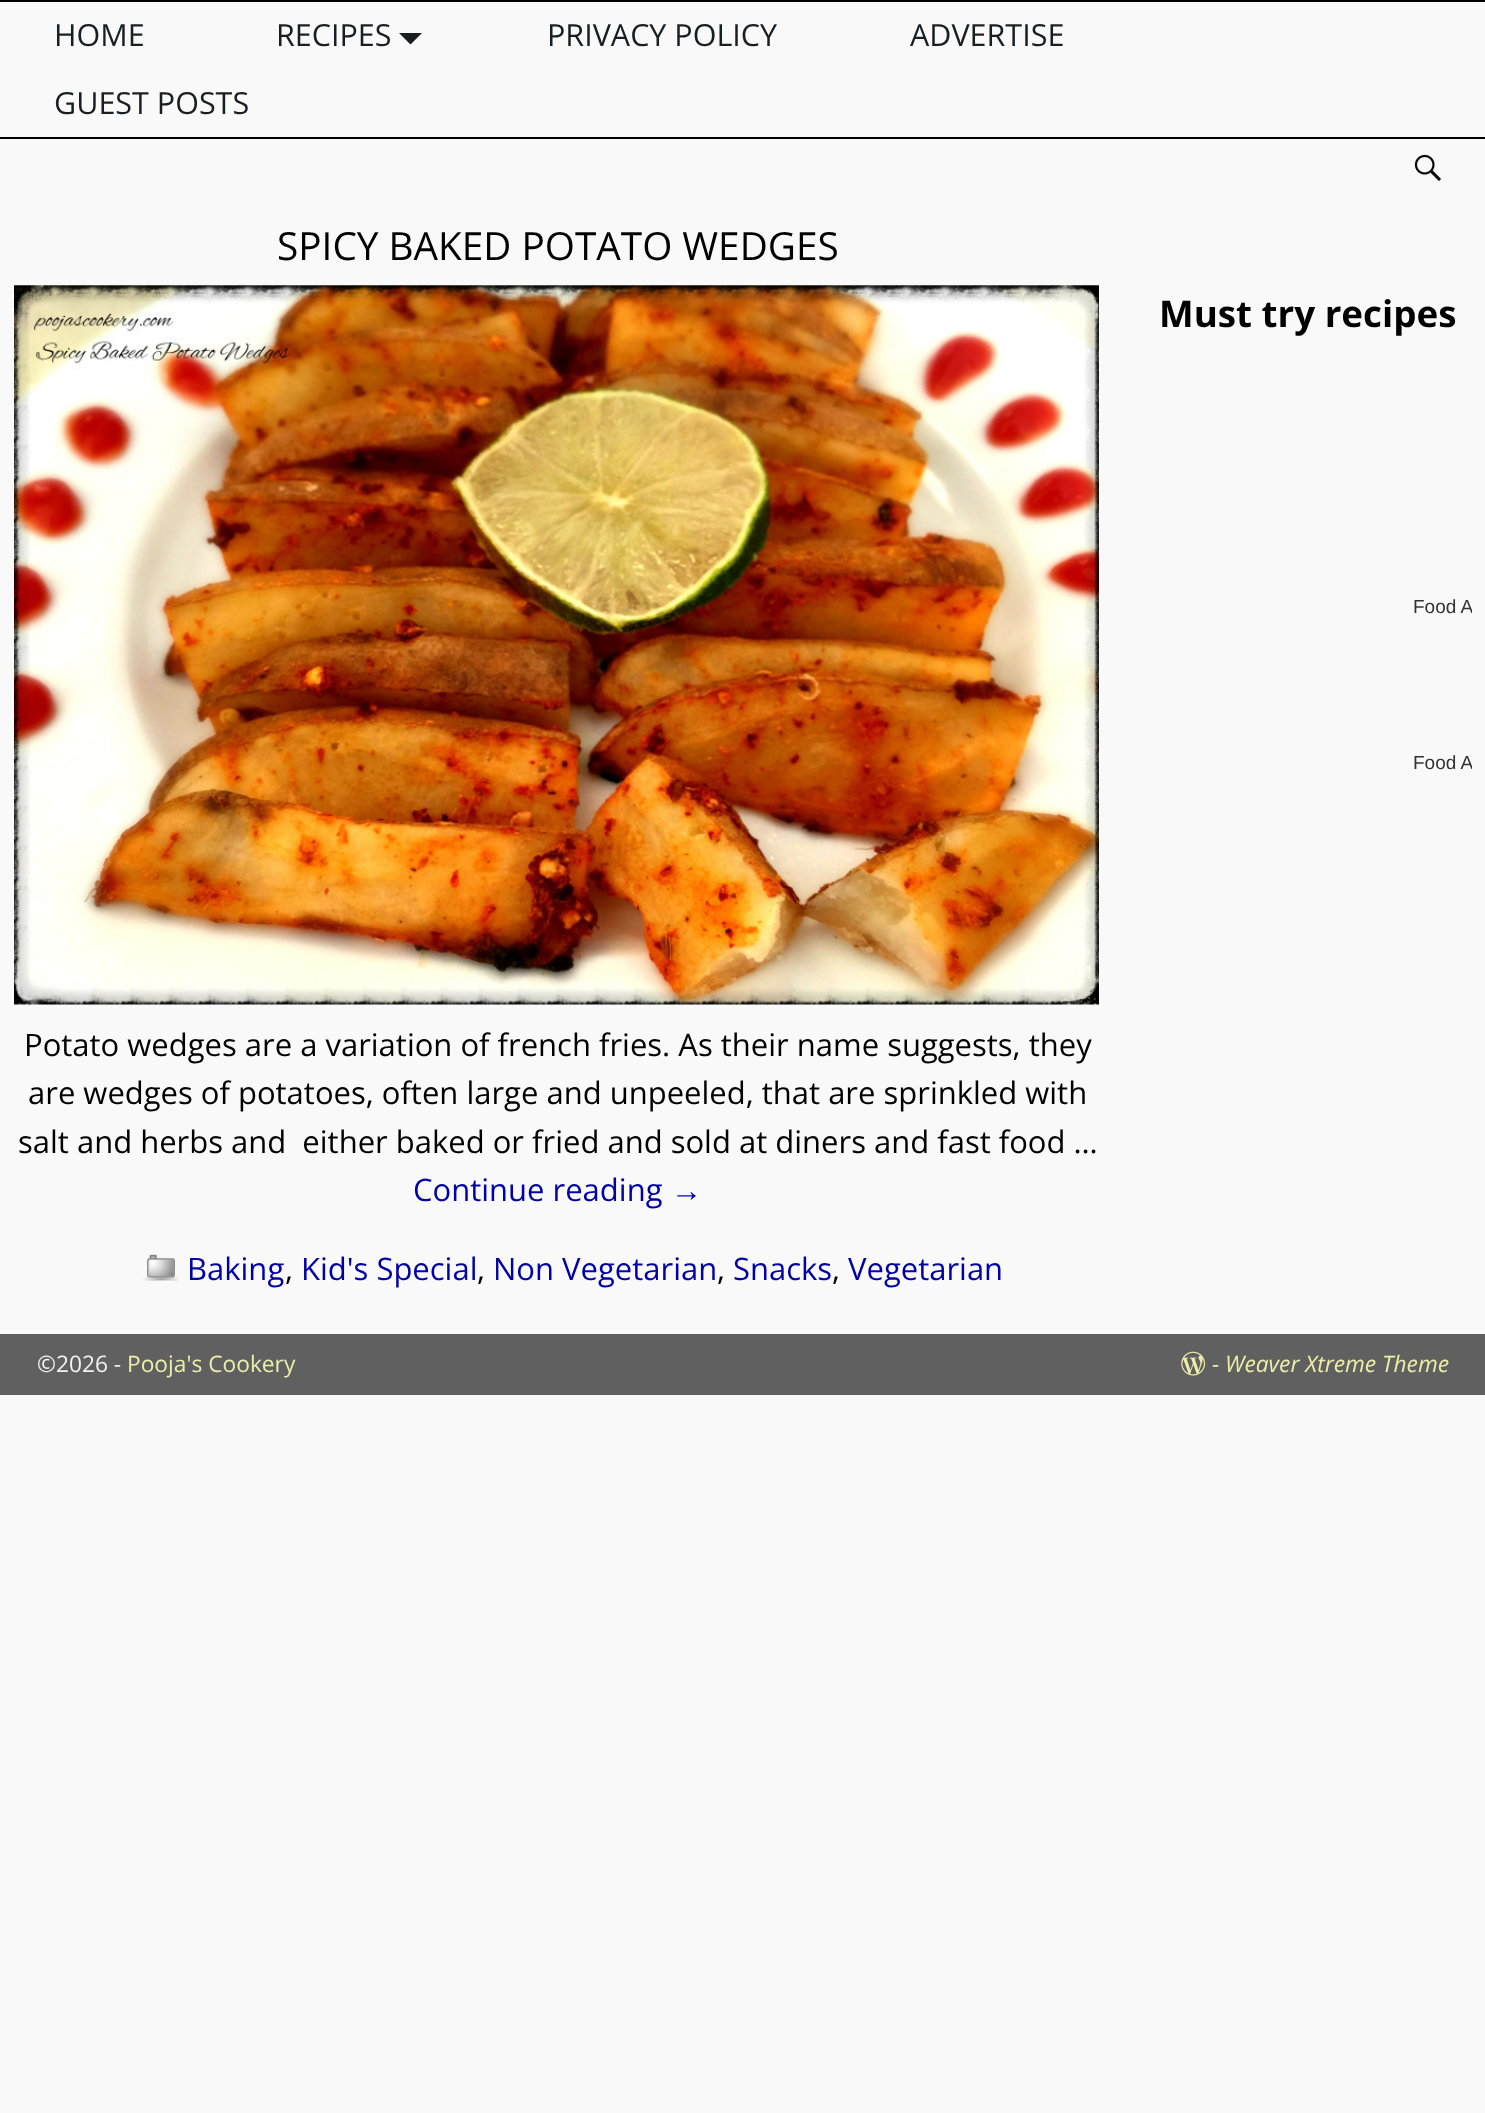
<svg xmlns="http://www.w3.org/2000/svg" width="1485" height="2113">
<style>
.a{font:30.5px Open Sans;fill:#191e23}
.b{font:38.75px Open Sans;fill:#000}
.c{font:31px Open Sans;fill:#000}
.d{font:31px Open Sans;fill:#0000a8}
.e{font:31px Liberation Sans;fill:#0000a8}
.f{font:bold 36.75px Open Sans;fill:#000}
.g{font:19px Liberation Sans;fill:#333}
.h{font:22.75px Open Sans;fill:#f2f2f2}
.i{font:22.75px Open Sans;fill:#ededaa}
.j{font:italic 22.75px Open Sans;fill:#ededaa}
</style>
<defs>
<clipPath id="clip1"><path d="M1143 564h329v54H1143z"/></clipPath>
<clipPath id="clip2"><path d="M1143 688h329v108H1143z"/></clipPath>
</defs>
<rect width="100%" height="100%" fill="#f9f9f9"/>
<path fill="#000" d="M0 0h1485v2H0z"/>
<path fill="#000" d="M0 137h1485v2H0z"/>
<path fill="#191e23" d="M399 33h23l-11.5 11.5z"/>
<image href="1.png" x="1414" y="154" width="27" height="27"/>
<image href="2.png" x="14" y="285" width="1085" height="720"/>
<image href="3.png" x="143" y="1254" width="36" height="27"/>
<path fill="#606060" d="M0 1334h1485v61H0z"/>
<image href="4.png" x="1181" y="1351" width="25" height="25"/>
<text class="a" x="54" y="46">HOME</text>
<text class="a" x="276" y="46">RECIPES</text>
<text class="a" x="547" y="46">PRIVACY POLICY</text>
<text class="a" x="910" y="46">ADVERTISE</text>
<text class="a" x="54" y="114">GUEST POSTS</text>
<text class="b" x="277" y="260">SPICY BAKED POTATO WEDGES</text>
<text class="c" x="24" y="1056">Potato wedges are a variation of french fries. As their name suggests, they</text>
<text class="c" x="28" y="1104">are wedges of potatoes, often large and unpeeled, that are sprinkled with</text>
<text class="c" xml:space="preserve" x="18" y="1153">salt and herbs and  either baked or fried and sold at diners and fast food …</text>
<text class="d" x="413" y="1201">Continue reading</text>
<text class="e" x="671" y="1201">→</text>
<text class="d" x="187" y="1280">Baking</text>
<text class="c" x="285" y="1280">,</text>
<text class="d" x="301" y="1280">Kid's Special</text>
<text class="c" x="477" y="1280">,</text>
<text class="d" x="493" y="1280">Non Vegetarian</text>
<text class="c" x="717" y="1280">,</text>
<text class="d" x="733" y="1280">Snacks</text>
<text class="c" x="832" y="1280">,</text>
<text class="d" x="848" y="1280">Vegetarian</text>
<text class="f" x="1159" y="327">Must try recipes</text>
<g clip-path="url(#clip1)">
<text class="g" x="1413" y="613">Food A</text>
</g>
<g clip-path="url(#clip2)">
<text class="g" x="1413" y="769">Food A</text>
</g>
<text class="h" x="37" y="1372">©2026 -</text>
<text class="i" x="127" y="1372">Pooja's Cookery</text>
<text class="j" x="1212" y="1372">- Weaver Xtreme Theme</text>
</svg>
